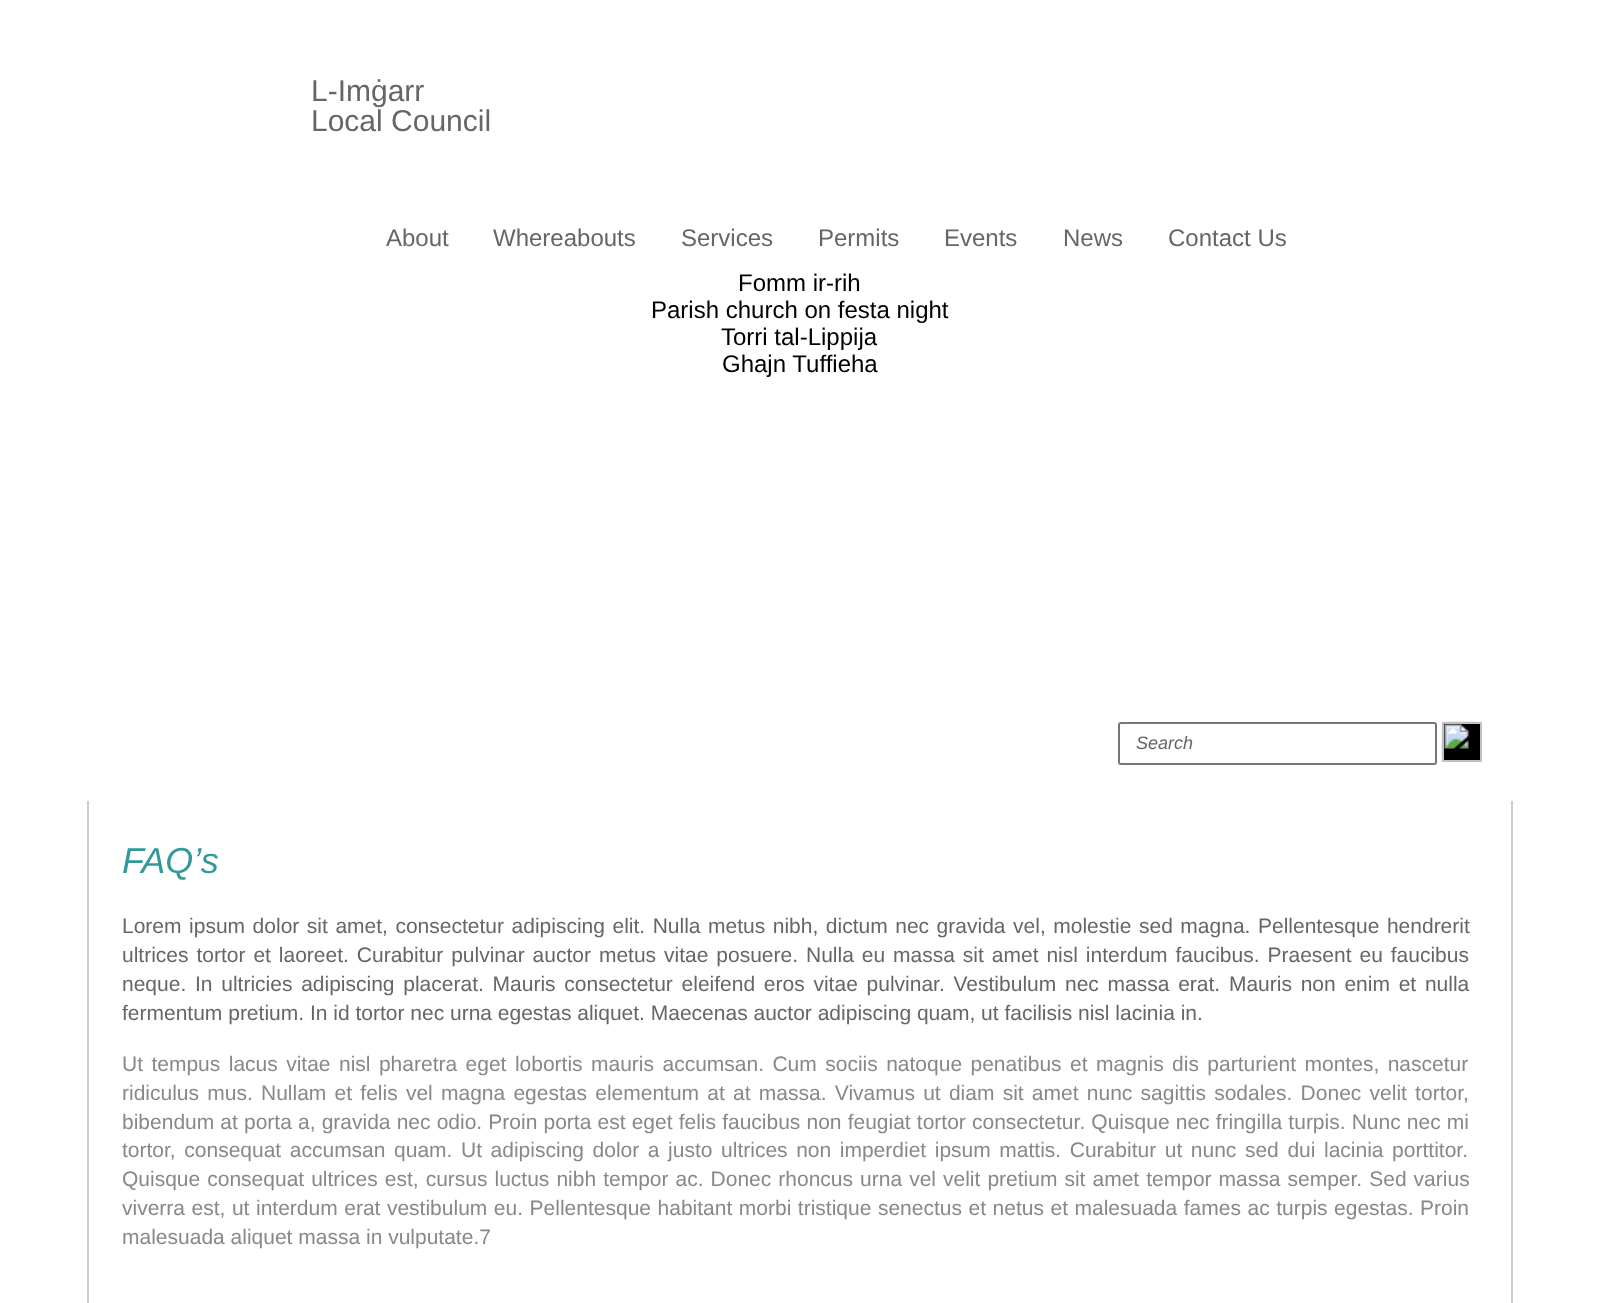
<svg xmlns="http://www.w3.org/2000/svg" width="1598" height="1303">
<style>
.a{font:30px Liberation Sans;fill:#666}
.b{font:24px Liberation Sans;fill:#666}
.c{font:24px Liberation Sans;fill:#000}
.d{font:italic 18px Liberation Sans;fill:#666}
.e{font:italic 36px Liberation Sans;fill:#399}
.f{font:21px Liberation Sans;fill:#666}
.g{font:21px Liberation Sans;fill:#888}
</style>
<rect width="100%" height="100%" fill="#fff"/>
<rect fill="none" stroke="#767676" stroke-width="2" x="1119" y="723" width="317" height="41" rx="2"/>
<path fill="#000" d="M1444 724h36v36H1444z"/>
<image href="1.png" x="1441" y="721" width="39" height="39"/>
<path fill="none" stroke="#c0c0c0" stroke-width="2" d="M1443 723h38v38H1443z"/>
<path fill="#ccc" d="M1511 801h2v502H1511z"/>
<path fill="#ccc" d="M87 801h2v502H87z"/>
<text class="a" x="311" y="101">L-Imġarr</text>
<text class="a" x="311" y="131">Local Council</text>
<text class="b" x="386" y="246">About</text>
<text class="b" x="493" y="246">Whereabouts</text>
<text class="b" x="681" y="246">Services</text>
<text class="b" x="818" y="246">Permits</text>
<text class="b" x="944" y="246">Events</text>
<text class="b" x="1063" y="246">News</text>
<text class="b" x="1168" y="246">Contact Us</text>
<text class="c" x="738" y="291">Fomm ir-rih</text>
<text class="c" x="651" y="318">Parish church on festa night</text>
<text class="c" x="721" y="345">Torri tal-Lippija</text>
<text class="c" x="722" y="372">Ghajn Tuffieha</text>
<text class="d" x="1136" y="749">Search</text>
<text class="e" x="122" y="873">FAQ’s</text>
<text class="f" x="122" y="933" word-spacing="1.7">Lorem ipsum dolor sit amet, consectetur adipiscing elit. Nulla metus nibh, dictum nec gravida vel, molestie sed magna. Pellentesque hendrerit</text>
<text class="f" x="122" y="962" word-spacing="2.1">ultrices tortor et laoreet. Curabitur pulvinar auctor metus vitae posuere. Nulla eu massa sit amet nisl interdum faucibus. Praesent eu faucibus</text>
<text class="f" x="122" y="991" word-spacing="2.9">neque. In ultricies adipiscing placerat. Mauris consectetur eleifend eros vitae pulvinar. Vestibulum nec massa erat. Mauris non enim et nulla</text>
<text class="f" x="122" y="1020">fermentum pretium. In id tortor nec urna egestas aliquet. Maecenas auctor adipiscing quam, ut facilisis nisl lacinia in.</text>
<text class="g" x="122" y="1071" word-spacing="2.6">Ut tempus lacus vitae nisl pharetra eget lobortis mauris accumsan. Cum sociis natoque penatibus et magnis dis parturient montes, nascetur</text>
<text class="g" x="122" y="1100" word-spacing="2.4">ridiculus mus. Nullam et felis vel magna egestas elementum at at massa. Vivamus ut diam sit amet nunc sagittis sodales. Donec velit tortor,</text>
<text class="g" x="122" y="1129" word-spacing="0.3">bibendum at porta a, gravida nec odio. Proin porta est eget felis faucibus non feugiat tortor consectetur. Quisque nec fringilla turpis. Nunc nec mi</text>
<text class="g" x="122" y="1157" word-spacing="2.75">tortor, consequat accumsan quam. Ut adipiscing dolor a justo ultrices non imperdiet ipsum mattis. Curabitur ut nunc sed dui lacinia porttitor.</text>
<text class="g" x="122" y="1186" word-spacing="1.2">Quisque consequat ultrices est, cursus luctus nibh tempor ac. Donec rhoncus urna vel velit pretium sit amet tempor massa semper. Sed varius</text>
<text class="g" x="122" y="1215" word-spacing="0.7">viverra est, ut interdum erat vestibulum eu. Pellentesque habitant morbi tristique senectus et netus et malesuada fames ac turpis egestas. Proin</text>
<text class="g" x="122" y="1244">malesuada aliquet massa in vulputate.7</text>
</svg>
